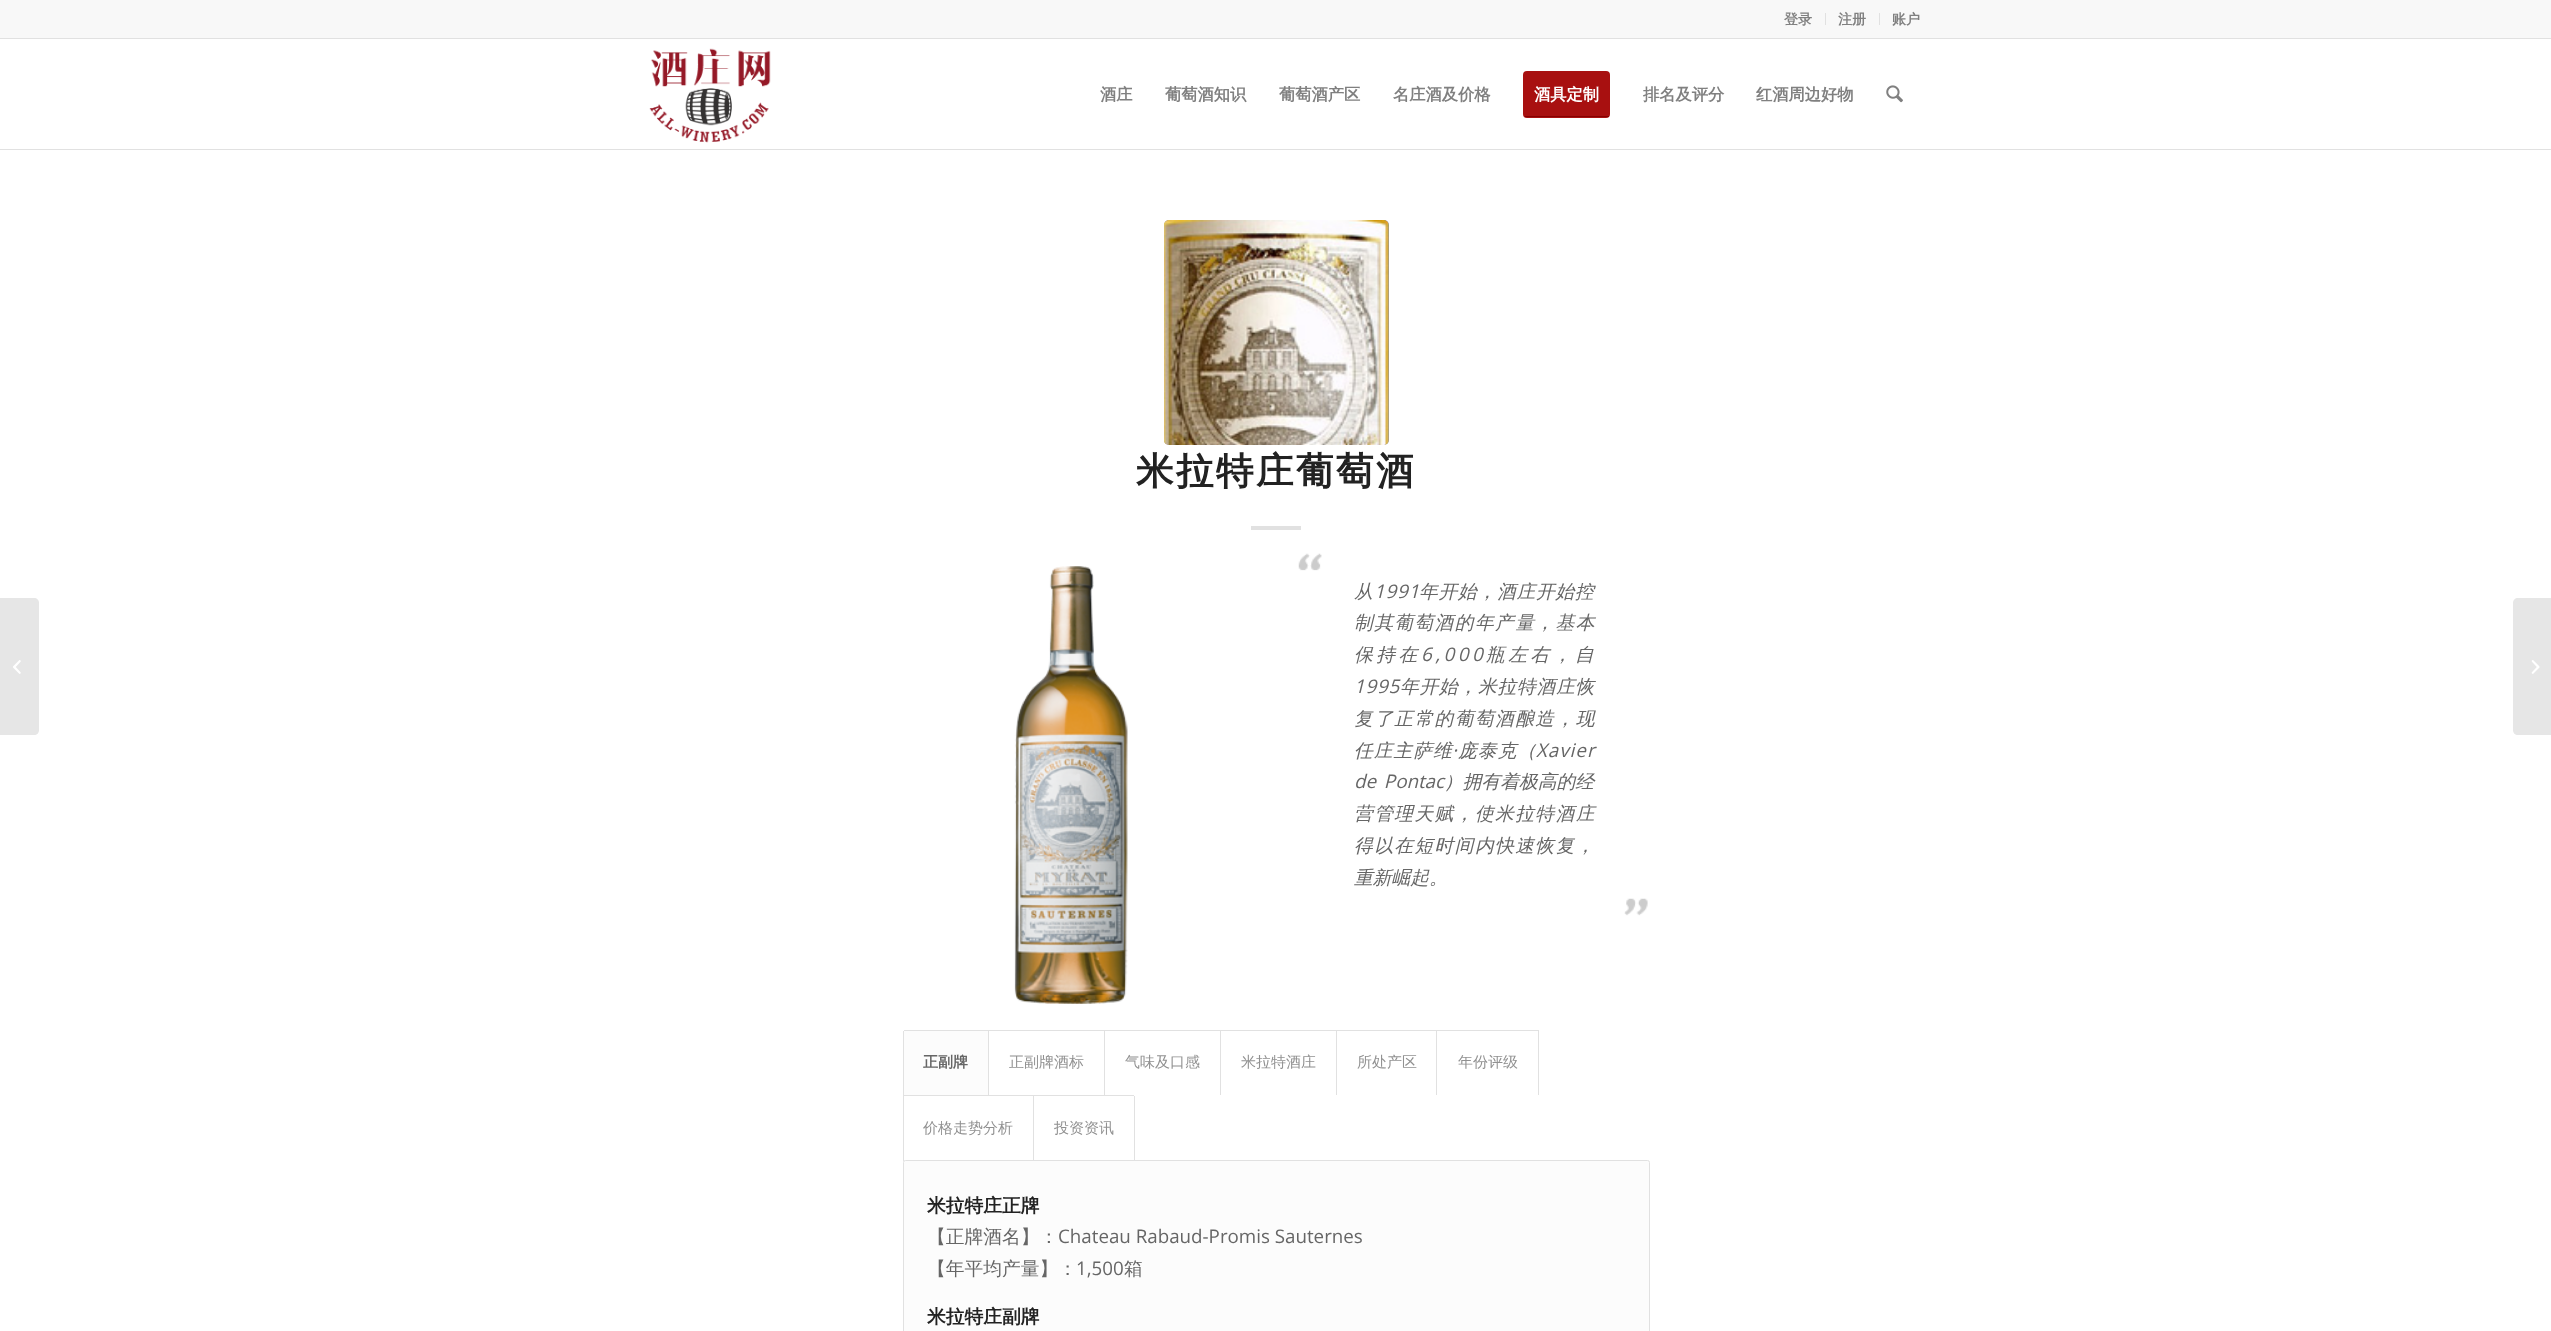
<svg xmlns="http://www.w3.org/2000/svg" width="2551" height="1331">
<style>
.a{font:bold 14px WenQuanYi Zen Hei;fill:#808080}
.b{font:bold 16.25px WenQuanYi Zen Hei;fill:#808080}
.c{font:bold 16.25px WenQuanYi Zen Hei;fill:#fff}
.d{font:bold 37.5px WenQuanYi Zen Hei;letter-spacing:2.5px;fill:#222}
.e{font:italic 500 18.75px WenQuanYi Zen Hei;letter-spacing:0.75px;fill:#666}
.f{font:italic 18.75px Open Sans;letter-spacing:0.75px;fill:#666}
.g{font:italic 500 18.75px WenQuanYi Zen Hei;letter-spacing:1.4px;fill:#666}
.h{font:italic 500 18.75px WenQuanYi Zen Hei;letter-spacing:3.5px;fill:#666}
.i{font:italic 18.75px Open Sans;letter-spacing:3.5px;fill:#666}
.j{font:italic 500 18.75px WenQuanYi Zen Hei;letter-spacing:1px;fill:#666}
.k{font:italic 18.75px Open Sans;letter-spacing:1px;fill:#666}
.l{font:italic 18.75px Open Sans;fill:#666}
.m{font:italic 500 18.75px WenQuanYi Zen Hei;fill:#666}
.n{font:bold 15px WenQuanYi Zen Hei;fill:#666}
.o{font:500 15px WenQuanYi Zen Hei;fill:#919191}
.p{font:bold 18.75px WenQuanYi Zen Hei;fill:#222}
.q{font:500 18.75px WenQuanYi Zen Hei;fill:#666}
.r{font:18.75px Open Sans;fill:#666}
</style>
<rect width="100%" height="100%" fill="#fff"/>
<path fill="#f8f8f8" d="M0 0h2551v38H0z"/>
<path fill="#e1e1e1" d="M0 38h2551v1H0z"/>
<path fill="#e1e1e1" d="M1825 13h1v12H1825z"/>
<path fill="#e1e1e1" d="M1879 13h1v12H1879z"/>
<path fill="#e1e1e1" d="M0 149h2551v1H0z"/>
<image href="1.png" x="649" y="48" width="122" height="95"/>
<rect fill="#a81010" x="1523" y="71" width="87" height="47" rx="4"/>
<path fill="#860000" d="M1525 116h84v1H1525z"/>
<image href="2.png" x="1886" y="85" width="17" height="18"/>
<path fill="#e6e6e6" d="M0 598h34c3 0 5 2 5 5v127c0 3-2 5-5 5h-34z"/>
<image href="3.png" x="13" y="660" width="8" height="14"/>
<rect fill="#919191" x="1164" y="220" width="225" height="225" rx="5"/>
<image href="4.png" x="1164" y="220" width="225" height="225"/>
<path fill="#e1e1e1" d="M1251 526h50v4H1251z"/>
<image href="5.png" x="1014" y="566" width="114" height="438"/>
<image href="6.png" x="1298" y="553" width="24" height="18"/>
<image href="7.png" x="1624" y="898" width="24" height="18"/>
<path fill="#e1e1e1" d="M988 1030h117v1H988z"/>
<path fill="#fcfcfc" d="M905.5 1030h83.5v65h-86v-62.5c0-1.5 1-2.5 2.5-2.5z"/>
<path fill="#e1e1e1" d="M904 1030h85v1H904z"/>
<path fill="#e1e1e1" d="M988 1030h1v65H988z"/>
<path fill="#e1e1e1" d="M903 1031h1v64H903z"/>
<path fill="#e1e1e1" d="M1104 1030h1v65H1104z"/>
<path fill="#e1e1e1" d="M1104 1030h117v1H1104z"/>
<path fill="#e1e1e1" d="M1220 1030h1v65H1220z"/>
<path fill="#e1e1e1" d="M1220 1030h118v1H1220z"/>
<path fill="#e1e1e1" d="M1336 1030h1v65H1336z"/>
<path fill="#e1e1e1" d="M1336 1030h102v1H1336z"/>
<path fill="#e1e1e1" d="M1436 1030h1v65H1436z"/>
<path fill="#e1e1e1" d="M1436 1030h103v1H1436z"/>
<path fill="#e1e1e1" d="M1538 1030h1v65H1538z"/>
<path fill="#e1e1e1" d="M903 1095h131v1H903z"/>
<rect fill="#fcfcfc" stroke="#e1e1e1" x="903.5" y="1160.5" width="746" height="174" rx="2"/>
<path fill="#e1e1e1" d="M1033 1095h1v66H1033z"/>
<path fill="#e1e1e1" d="M903 1095h1v66H903z"/>
<path fill="#e1e1e1" d="M1033 1095h101v1H1033z"/>
<path fill="#e1e1e1" d="M1134 1096h1v65H1134z"/>
<path fill="#e6e6e6" d="M2518 598h33v137h-33c-3 0-5-2-5-5v-127c0-3 2-5 5-5z"/>
<image href="8.png" x="2531" y="660" width="9" height="14"/>
<text class="a" x="1784" y="24">登录</text>
<text class="a" x="1838" y="24">注册</text>
<text class="a" x="1892" y="24">账户</text>
<text class="b" x="1100" y="100">酒庄</text>
<text class="b" x="1165" y="100">葡萄酒知识</text>
<text class="b" x="1279" y="100">葡萄酒产区</text>
<text class="b" x="1393" y="100">名庄酒及价格</text>
<text class="c" x="1534" y="100">酒具定制</text>
<text class="b" x="1643" y="100">排名及评分</text>
<text class="b" x="1756" y="100">红酒周边好物</text>
<text class="d" x="1136" y="484">米拉特庄葡萄酒</text>
<text class="e" x="1354" y="598">从</text>
<text class="f" x="1374" y="598">1991</text>
<text class="e" x="1419" y="598">年开始，酒庄开始控</text>
<text class="g" x="1354" y="629">制其葡萄酒的年产量，基本</text>
<text class="h" x="1354" y="661">保持在</text>
<text class="i" x="1421" y="661">6,000</text>
<text class="h" x="1486" y="661">瓶左右，自</text>
<text class="f" x="1354" y="693">1995</text>
<text class="e" x="1400" y="693">年开始，米拉特酒庄恢</text>
<text class="g" x="1354" y="725">复了正常的葡萄酒酿造，现</text>
<text class="j" x="1354" y="757">任庄主萨维</text>
<text class="k" x="1452" y="757">·</text>
<text class="j" x="1458" y="757">庞泰克（</text>
<text class="k" x="1536" y="757">Xavier</text>
<text class="l" x="1354" y="788" word-spacing="3">de Pontac</text>
<text class="m" x="1444" y="788">）拥有着极高的经</text>
<text class="g" x="1354" y="820">营管理天赋，使米拉特酒庄</text>
<text class="g" x="1354" y="852">得以在短时间内快速恢复，</text>
<text class="m" x="1354" y="884">重新崛起。</text>
<text class="n" x="923" y="1067">正副牌</text>
<text class="o" x="1009" y="1067">正副牌酒标</text>
<text class="o" x="1125" y="1067">气味及口感</text>
<text class="o" x="1241" y="1067">米拉特酒庄</text>
<text class="o" x="1357" y="1067">所处产区</text>
<text class="o" x="1458" y="1067">年份评级</text>
<text class="o" x="923" y="1133">价格走势分析</text>
<text class="o" x="1054" y="1133">投资资讯</text>
<text class="p" x="927" y="1212">米拉特庄正牌</text>
<text class="q" x="927" y="1243">【正牌酒名】：</text>
<text class="r" x="1058" y="1243">Chateau Rabaud-Promis Sauternes</text>
<text class="q" x="927" y="1275">【年平均产量】：</text>
<text class="r" x="1076" y="1275">1,500</text>
<text class="q" x="1124" y="1275">箱</text>
<text class="p" x="927" y="1323">米拉特庄副牌</text>
</svg>
